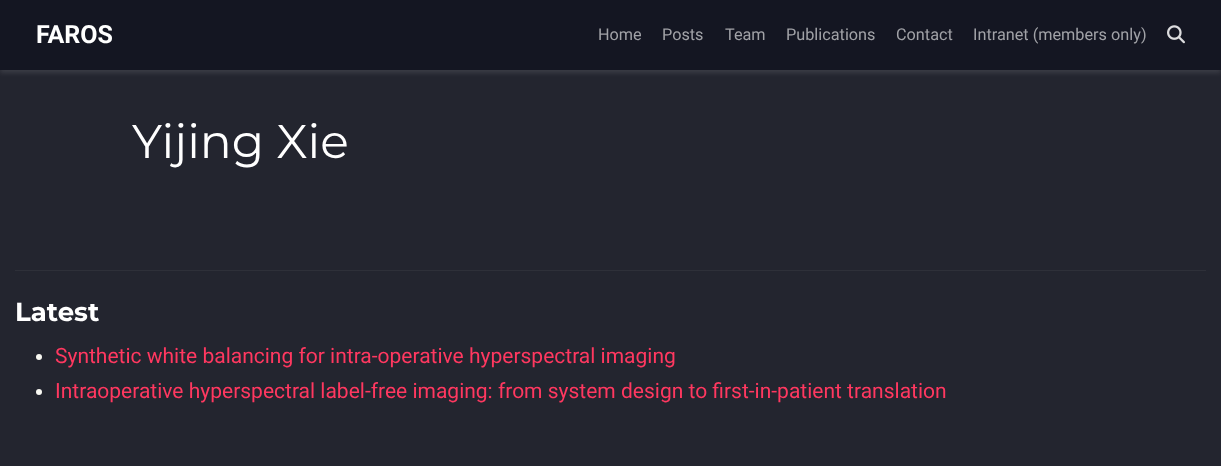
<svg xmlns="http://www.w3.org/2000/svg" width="1221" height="466">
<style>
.a{font:bold 25px Roboto;fill:#fff}
.b{font:16.25px Roboto;fill:#a1a2a7}
.c{font:47.25px Montserrat;fill:#fff}
.d{font:bold 26px Montserrat;fill:#fff}
.e{font:21px Roboto;fill:#ff3860}
</style>
<rect width="100%" height="100%" fill="#23252f"/>
<path fill="#ffffff1c" filter="blur(2.5px)" d="M0 3h1221v70H0z"/>
<path fill="#141622" d="M0 0h1221v70H0z"/>
<image href="1.png" x="1167" y="25" width="18" height="19"/>
<path fill="#2e3039" d="M15 270h1191v1H15z"/>
<circle fill="#f8f8f2" cx="39" cy="357" r="3"/>
<circle fill="#f8f8f2" cx="39" cy="392" r="3"/>
<text class="a" x="36" y="43">FAROS</text>
<text class="b" x="598" y="40">Home</text>
<text class="b" x="662" y="40">Posts</text>
<text class="b" x="725" y="40">Team</text>
<text class="b" x="786" y="40">Publications</text>
<text class="b" x="896" y="40">Contact</text>
<text class="b" x="973" y="40">Intranet (members only)</text>
<text class="c" x="132" y="158">Yijing Xie</text>
<text class="d" x="15" y="321">Latest</text>
<text class="e" x="55" y="363">Synthetic white balancing for intra-operative hyperspectral imaging</text>
<text class="e" x="55" y="398">Intraoperative hyperspectral label-free imaging: from system design to first-in-patient translation</text>
</svg>
